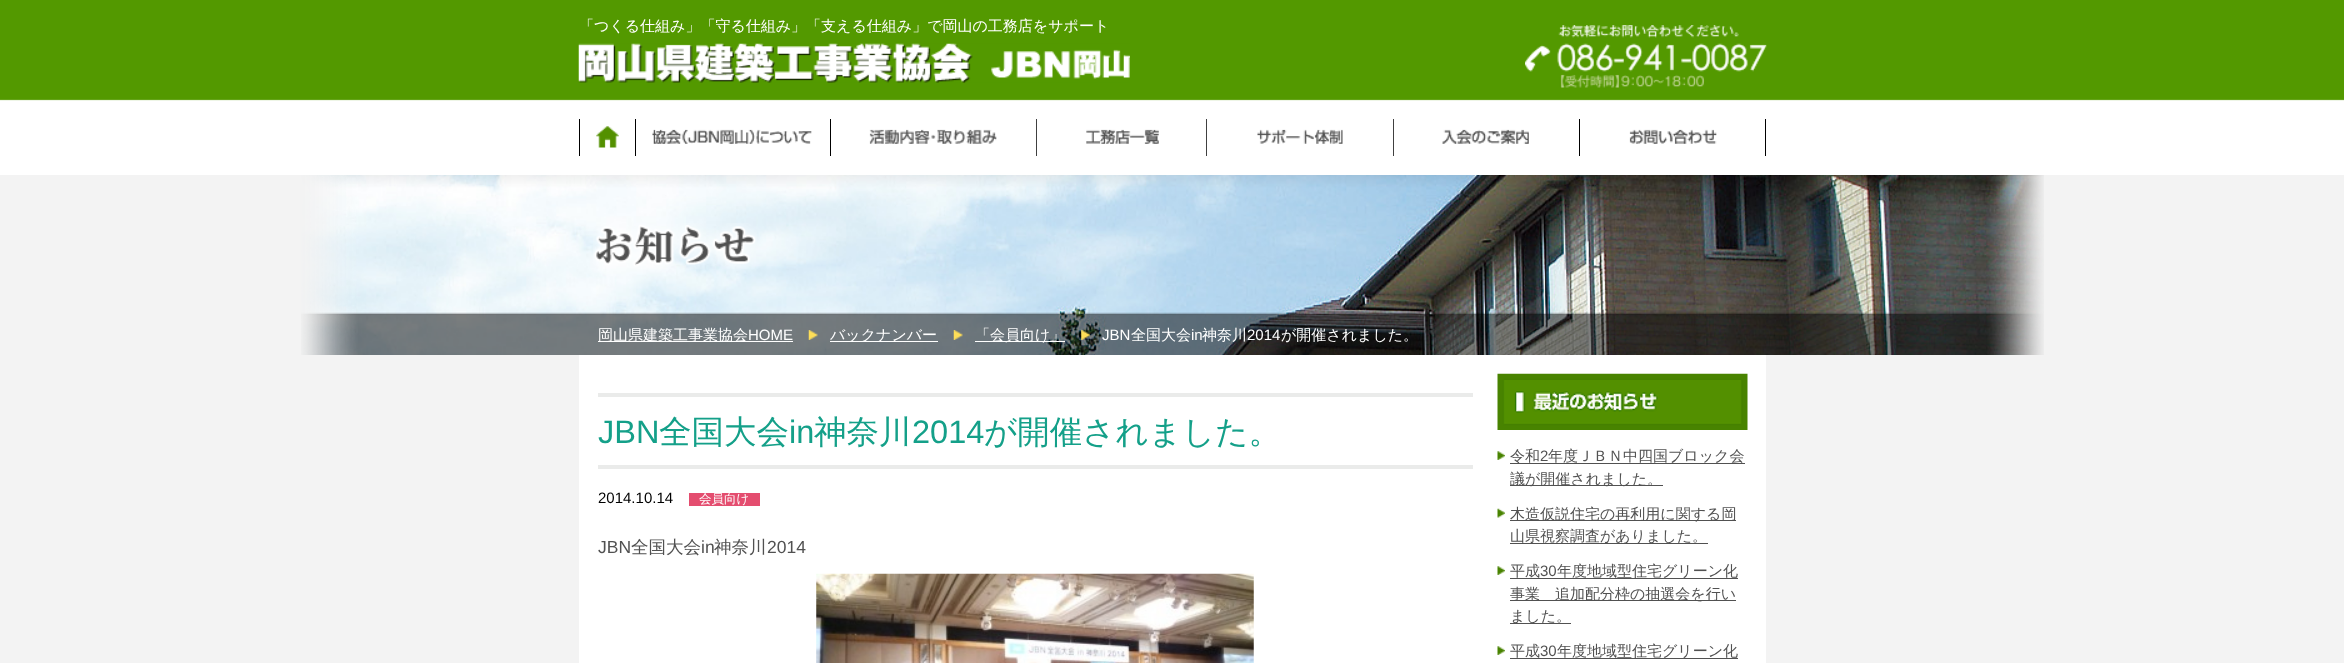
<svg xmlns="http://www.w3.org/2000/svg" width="2344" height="663">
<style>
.a{font:500 15px WenQuanYi Zen Hei;fill:#fff}
.b{font:15px Liberation Sans;fill:#fff}
.c{font:32.5px Liberation Sans;fill:#14a089}
.d{font:500 32.5px WenQuanYi Zen Hei;fill:#14a089}
.e{font:15px Liberation Sans;fill:#000}
.f{font:500 12.5px WenQuanYi Zen Hei;fill:#fff}
.g{font:17.5px Liberation Sans;fill:#515151}
.h{font:500 17.5px WenQuanYi Zen Hei;fill:#515151}
.i{font:500 15px WenQuanYi Zen Hei;fill:#515151}
.j{font:15px Liberation Sans;fill:#515151}
</style>
<rect width="100%" height="100%" fill="#f3f3f3"/>
<image href="1.png" x="0" y="0" width="2344" height="175"/>
<image href="2.png" x="1525" y="25" width="242" height="63"/>
<image href="3.png" x="578" y="43" width="552" height="40"/>
<path fill="#000" d="M635 119h1v37H635z"/>
<path fill="#000" d="M579 119h1v37H579z"/>
<image href="4.png" x="596" y="126" width="23" height="22"/>
<path fill="#000" d="M830 119h1v37H830z"/>
<image href="5.png" x="652" y="129" width="160" height="15"/>
<path fill="#000" d="M1036 119h1v37H1036z"/>
<image href="6.png" x="869" y="119" width="168" height="37"/>
<path fill="#000" d="M1206 119h1v37H1206z"/>
<image href="7.png" x="1086" y="119" width="121" height="37"/>
<path fill="#000" d="M1393 119h1v37H1393z"/>
<image href="8.png" x="1257" y="129" width="86" height="15"/>
<path fill="#000" d="M1579 119h1v37H1579z"/>
<image href="9.png" x="1393" y="119" width="136" height="37"/>
<path fill="#000" d="M1765 119h1v37H1765z"/>
<image href="10.png" x="1629" y="129" width="88" height="15"/>
<image href="11.png" x="301" y="175" width="1743" height="180"/>
<image href="12.png" x="593" y="223" width="164" height="46"/>
<path fill="#fff" d="M598 341h195v1H598z"/>
<image href="13.png" x="808" y="330" width="10" height="10"/>
<path fill="#fff" d="M830 341h108v1H830z"/>
<image href="14.png" x="953" y="330" width="10" height="10"/>
<path fill="#fff" d="M975 341h90v1H975z"/>
<image href="15.png" x="1081" y="330" width="9" height="10"/>
<path fill="#fff" d="M579 355h1187v308H579z"/>
<path fill="#eaebea" d="M598 393h875v4H598z"/>
<path fill="#eaebea" d="M598 465h875v4H598z"/>
<path fill="#e44d6f" d="M689 493h71v13H689z"/>
<image href="16.png" x="816" y="573" width="438" height="90"/>
<image href="17.png" x="1497" y="373" width="251" height="57"/>
<image href="18.png" x="1497" y="451" width="8" height="9"/>
<path fill="#515151" d="M1510 463h235v1H1510z"/>
<path fill="#515151" d="M1510 485h153v1H1510z"/>
<image href="19.png" x="1497" y="508" width="8" height="10"/>
<path fill="#515151" d="M1510 520h226v1H1510z"/>
<path fill="#515151" d="M1510 543h198v1H1510z"/>
<image href="18.png" x="1497" y="566" width="8" height="9"/>
<path fill="#515151" d="M1510 578h228v1H1510z"/>
<path fill="#515151" d="M1510 600h226v1H1510z"/>
<path fill="#515151" d="M1510 623h61v1H1510z"/>
<image href="18.png" x="1497" y="646" width="8" height="9"/>
<path fill="#515151" d="M1510 658h228v1H1510z"/>
<text class="a" x="579" y="31">「つくる仕組み」「守る仕組み」「支える仕組み」で岡山の工務店をサポート</text>
<text class="a" x="598" y="340">岡山県建築工事業協会</text>
<text class="b" x="748" y="340">HOME</text>
<text class="a" x="830" y="340">バックナンバー</text>
<text class="a" x="975" y="340">「会員向け」</text>
<text class="b" x="1102" y="340">JBN</text>
<text class="a" x="1131" y="340">全国大会</text>
<text class="b" x="1191" y="340">in</text>
<text class="a" x="1202" y="340">神奈川</text>
<text class="b" x="1247" y="340">2014</text>
<text class="a" x="1281" y="340">が開催されました。</text>
<text class="c" x="598" y="443">JBN</text>
<text class="d" x="659" y="443">全国大会</text>
<text class="c" x="789" y="443">in</text>
<text class="d" x="814" y="443">神奈川</text>
<text class="c" x="912" y="443">2014</text>
<text class="d" x="984" y="443">が開催されました。</text>
<text class="e" x="598" y="503">2014.10.14</text>
<text class="f" x="699" y="503">会員向け</text>
<text class="g" x="598" y="553">JBN</text>
<text class="h" x="631" y="553">全国大会</text>
<text class="g" x="701" y="553">in</text>
<text class="h" x="714" y="553">神奈川</text>
<text class="g" x="767" y="553">2014</text>
<text class="i" x="1510" y="461">令和</text>
<text class="j" x="1540" y="461">2</text>
<text class="i" x="1548" y="461">年度ＪＢＮ中四国ブロック会</text>
<text class="i" x="1510" y="484">議が開催されました。</text>
<text class="i" x="1510" y="519">木造仮説住宅の再利用に関する岡</text>
<text class="i" x="1510" y="541">山県視察調査がありました。</text>
<text class="i" x="1510" y="576">平成</text>
<text class="j" x="1540" y="576">30</text>
<text class="i" x="1557" y="576">年度地域型住宅グリーン化</text>
<text class="i" x="1510" y="599">事業　追加配分枠の抽選会を行い</text>
<text class="i" x="1510" y="621">ました。</text>
<text class="i" x="1510" y="656">平成</text>
<text class="j" x="1540" y="656">30</text>
<text class="i" x="1557" y="656">年度地域型住宅グリーン化</text>
</svg>
